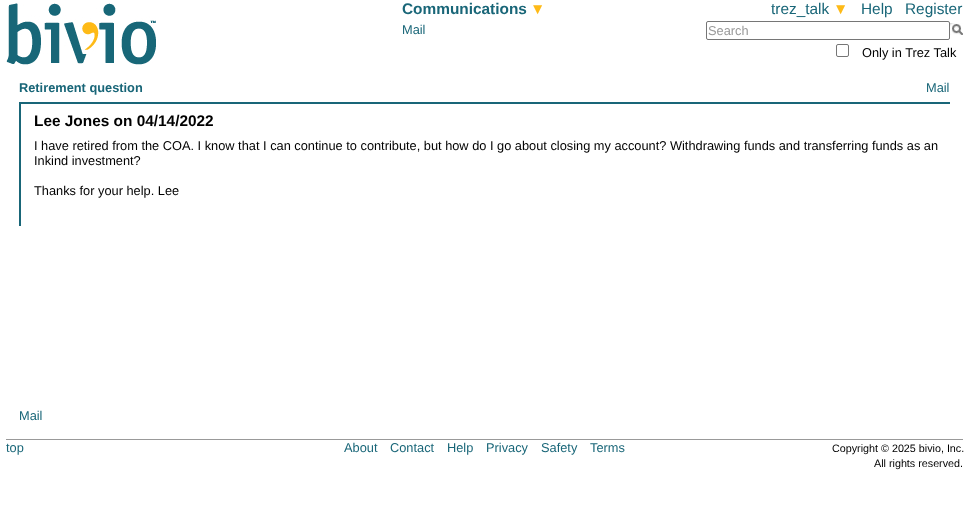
<svg xmlns="http://www.w3.org/2000/svg" width="969" height="512">
<style>
.a{font:bold 15.4px Liberation Sans;fill:#196678}
.b{font:bold 15.4px Liberation Sans;fill:#feba17}
.c{font:12.8px Liberation Sans;fill:#196678}
.d{font:15.4px Liberation Sans;fill:#196678}
.e{font:15.4px Liberation Sans;fill:#feba17}
.f{font:12.8px Liberation Sans;fill:#999}
.g{font:12.8px Liberation Sans;fill:#000}
.h{font:bold 12.8px Liberation Sans;fill:#196678}
.i{font:bold 15.4px Liberation Sans;fill:#000}
.j{font:10.75px Liberation Sans;fill:#000}
</style>
<rect width="100%" height="100%" fill="#fff"/>
<image href="1.png" x="6" y="3" width="150" height="62"/>
<rect fill="none" stroke="#767676" x="706.5" y="21.5" width="243" height="18" rx="1.5"/>
<image href="2.png" x="950" y="23" width="13" height="12"/>
<rect fill="none" stroke="#767676" x="836.5" y="44.5" width="12" height="12" rx="1.5"/>
<path fill="#196678" d="M19 102h931v2H19z"/>
<path fill="#196678" d="M19 102h2v124H19z"/>
<path fill="#999" d="M6 439h957v1H6z"/>
<text class="a" x="402" y="14">Communications</text>
<text class="b" x="530" y="14">▼</text>
<text class="c" x="402" y="34">Mail</text>
<text class="d" x="771" y="14">trez_talk</text>
<text class="e" x="833" y="14">▼</text>
<text class="d" x="861" y="14">Help</text>
<text class="d" x="905" y="14">Register</text>
<text class="f" x="708" y="35">Search</text>
<text class="g" x="862" y="57">Only in Trez Talk</text>
<text class="h" x="19" y="92">Retirement question</text>
<text class="c" x="926" y="92">Mail</text>
<text class="i" x="34" y="126">Lee Jones on 04/14/2022</text>
<text class="g" x="34" y="150">I have retired from the COA. I know that I can continue to contribute, but how do I go about closing my account? Withdrawing funds and transferring funds as an</text>
<text class="g" x="34" y="165">Inkind investment?</text>
<text class="g" x="34" y="195">Thanks for your help. Lee</text>
<text class="c" x="19" y="420">Mail</text>
<text class="c" x="6" y="452">top</text>
<text class="c" x="344" y="452">About</text>
<text class="c" x="390" y="452">Contact</text>
<text class="c" x="447" y="452">Help</text>
<text class="c" x="486" y="452">Privacy</text>
<text class="c" x="541" y="452">Safety</text>
<text class="c" x="590" y="452">Terms</text>
<text class="j" x="832" y="452">Copyright © 2025 bivio, Inc.</text>
<text class="j" x="874" y="467">All rights reserved.</text>
</svg>
